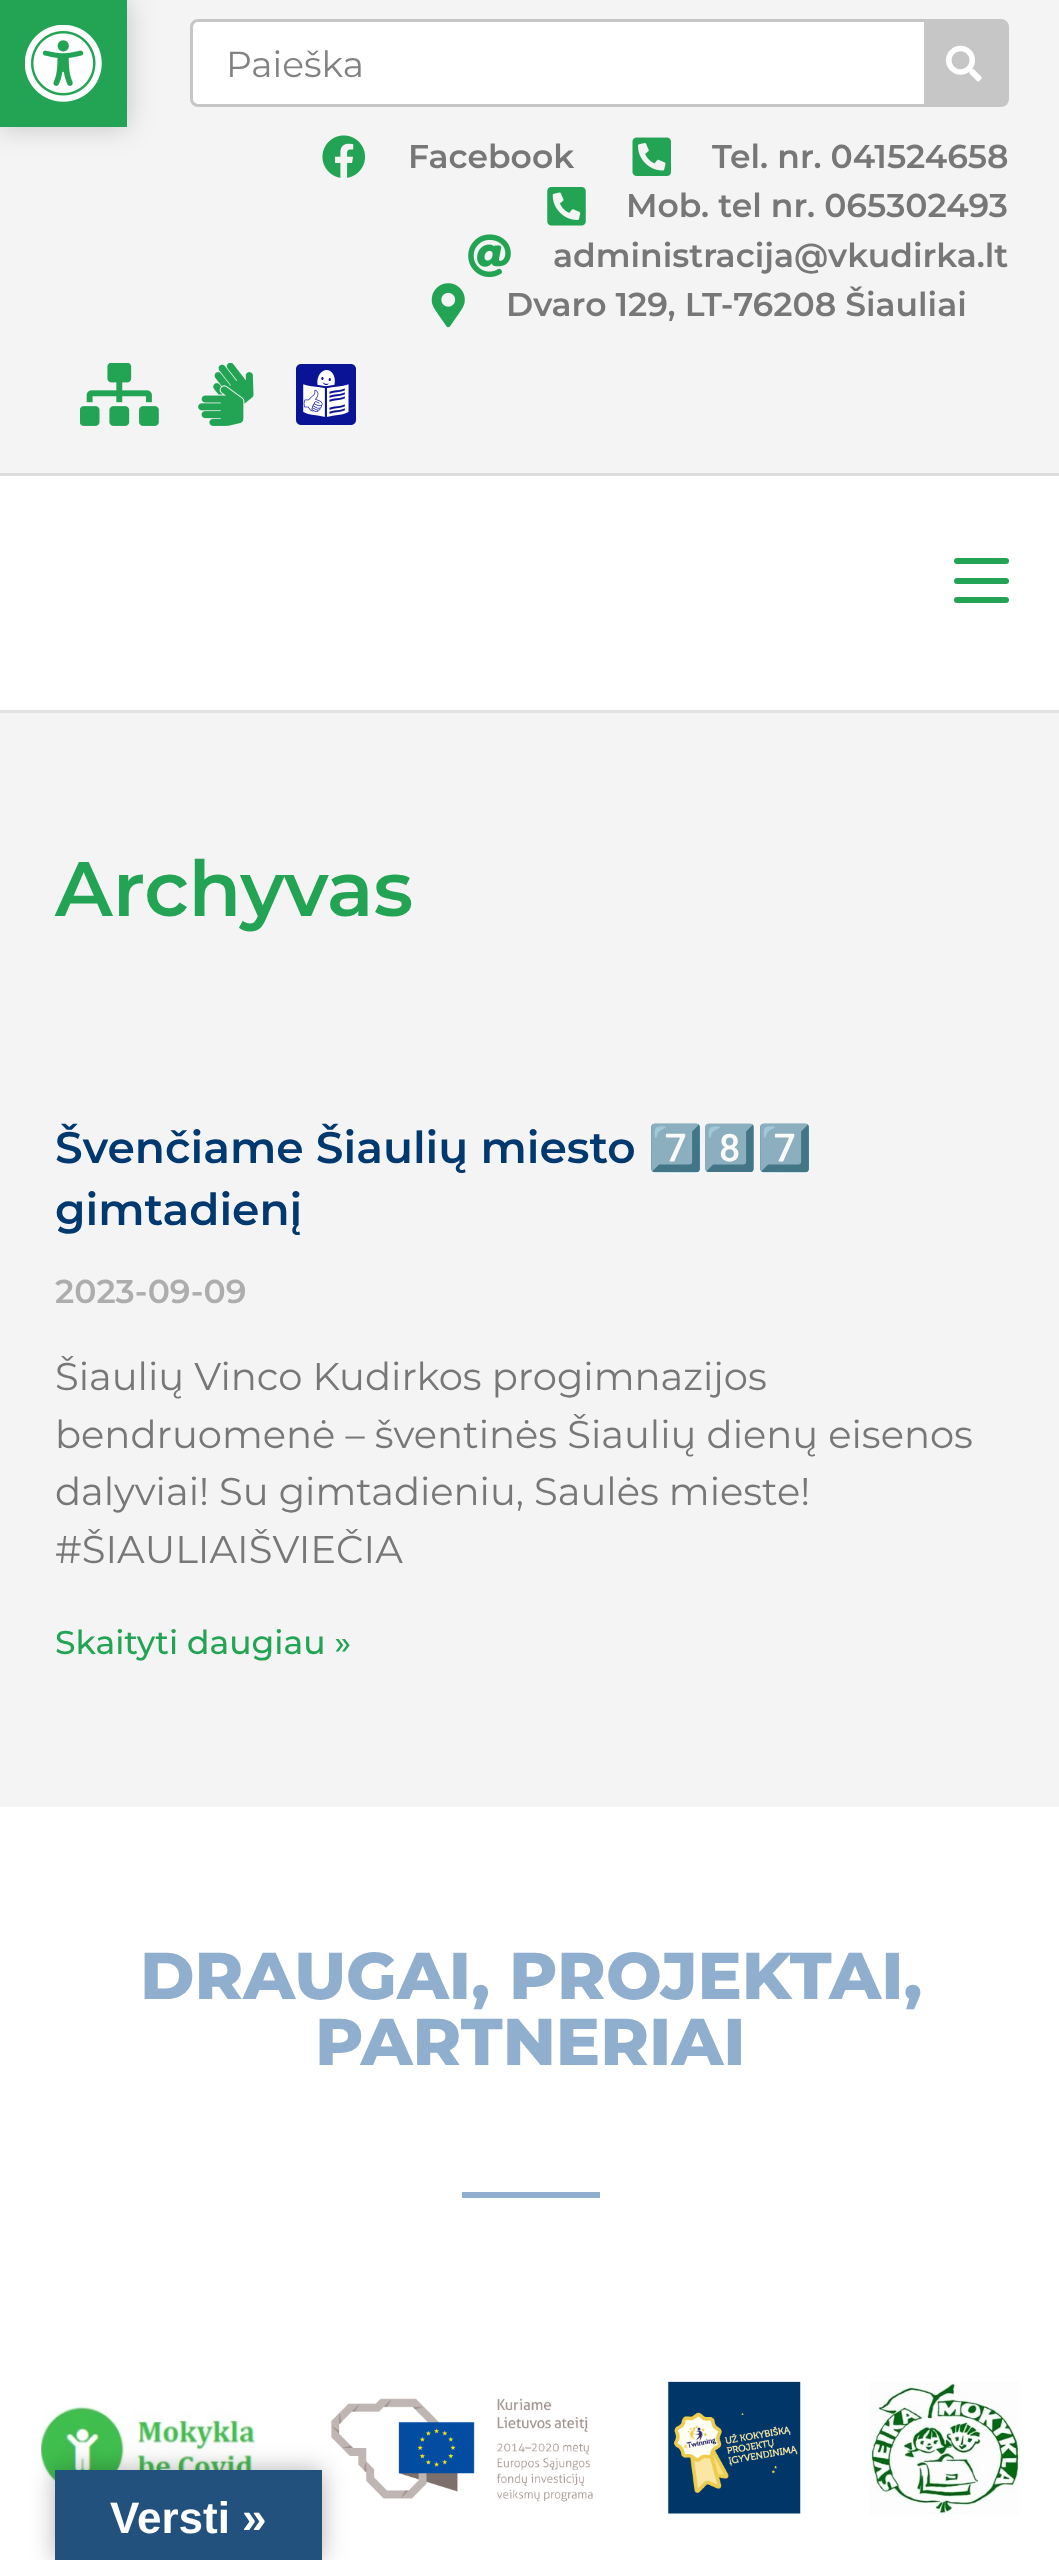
<svg xmlns="http://www.w3.org/2000/svg" width="1059" height="2560">
<style>
.a{font:36px Montserrat;fill:#828282}
.b{font:600 33px Montserrat;fill:#777}
.c{font:600 77px Montserrat;fill:#23a455}
.d{font:600 44px Montserrat;fill:#003870}
.e{font:bold 44px Noto Color Emoji;fill:#003870}
.f{font:600 33px Montserrat;fill:#adadad}
.g{font:38.5px Montserrat;fill:#777}
.h{font:500 33px Montserrat;fill:#23a455}
.i{font:800 66px Montserrat;fill:#90afce}
.j{font:bold 44px Liberation Sans;fill:#fff}
</style>
<rect width="100%" height="100%" fill="#f4f4f4"/>
<path fill="#00000033" filter="blur(14px)" d="M0 0h127v127H0z"/>
<path fill="#23a455" d="M0 0h127v127H0z"/>
<image href="1.png" x="25" y="25" width="77" height="77"/>
<path fill="#ddd" d="M0 473h1059v3H0z"/>
<rect fill="#fff" stroke="#c6c6c6" stroke-width="3" x="191.5" y="20.5" width="816" height="85" rx="6.5"/>
<path fill="#c6c6c6" d="M924 22h77c3.5 0 6 2.5 6 6v71c0 3.5-2.5 6-6 6h-77z"/>
<image href="2.png" x="946" y="45" width="36" height="37"/>
<image href="3.png" x="322" y="135" width="44" height="43"/>
<image href="4.png" x="632" y="137" width="39" height="39"/>
<image href="5.png" x="547" y="187" width="39" height="39"/>
<image href="6.png" x="468" y="234" width="43" height="44"/>
<image href="7.png" x="431" y="283" width="34" height="45"/>
<image href="8.png" x="80" y="363" width="79" height="63"/>
<image href="9.png" x="198" y="363" width="56" height="63"/>
<image href="10.png" x="296" y="364" width="60" height="61"/>
<path fill="#fff" d="M0 476h1059v234H0z"/>
<path fill="#e2e2e2" d="M0 710h1059v3H0z"/>
<rect fill="#23a455" x="954" y="578" width="55" height="6" rx="3"/>
<rect fill="#23a455" x="954" y="558" width="55" height="6" rx="3"/>
<rect fill="#23a455" x="954" y="597" width="55" height="6" rx="3"/>
<path fill="#fff" d="M0 1807h1059v753H0z"/>
<path fill="#90afce" d="M462 2192h138v6H462z"/>
<image href="11.png" x="41" y="2406" width="215" height="86"/>
<image href="12.png" x="331" y="2398" width="262" height="104"/>
<image href="13.png" x="668" y="2381" width="133" height="133"/>
<image href="14.png" x="869" y="2381" width="151" height="134"/>
<path fill="#0000004d" filter="blur(12.5px)" d="M55 2470h267v90H55z"/>
<path fill="#23517e" d="M55 2470h267v90H55z"/>
<text class="a" x="226" y="77">Paieška</text>
<text class="b" x="408" y="168">Facebook</text>
<text class="b" x="712" y="168">Tel. nr. 041524658</text>
<text class="b" x="626" y="217">Mob. tel nr. 065302493</text>
<text class="b" x="553" y="267">administracija@vkudirka.lt</text>
<text class="b" x="506" y="316">Dvaro 129, LT-76208 Šiauliai</text>
<text class="c" x="55" y="916">Archyvas</text>
<text class="d" x="55" y="1163">Švenčiame Šiaulių miesto</text>
<text class="e" x="648" y="1163">7️⃣8️⃣7️⃣</text>
<text class="d" x="55" y="1225">gimtadienį</text>
<text class="f" x="55" y="1303">2023-09-09</text>
<text class="g" x="55" y="1390">Šiaulių Vinco Kudirkos progimnazijos</text>
<text class="g" x="55" y="1448">bendruomenė – šventinės Šiaulių dienų eisenos</text>
<text class="g" x="55" y="1505">dalyviai! Su gimtadieniu, Saulės mieste!</text>
<text class="g" x="55" y="1563">#ŠIAULIAIŠVIEČIA</text>
<text class="h" x="55" y="1654">Skaityti daugiau »</text>
<text class="i" x="140" y="1999">DRAUGAI, PROJEKTAI,</text>
<text class="i" x="315" y="2065">PARTNERIAI</text>
<text class="j" x="110" y="2533">Versti »</text>
</svg>
